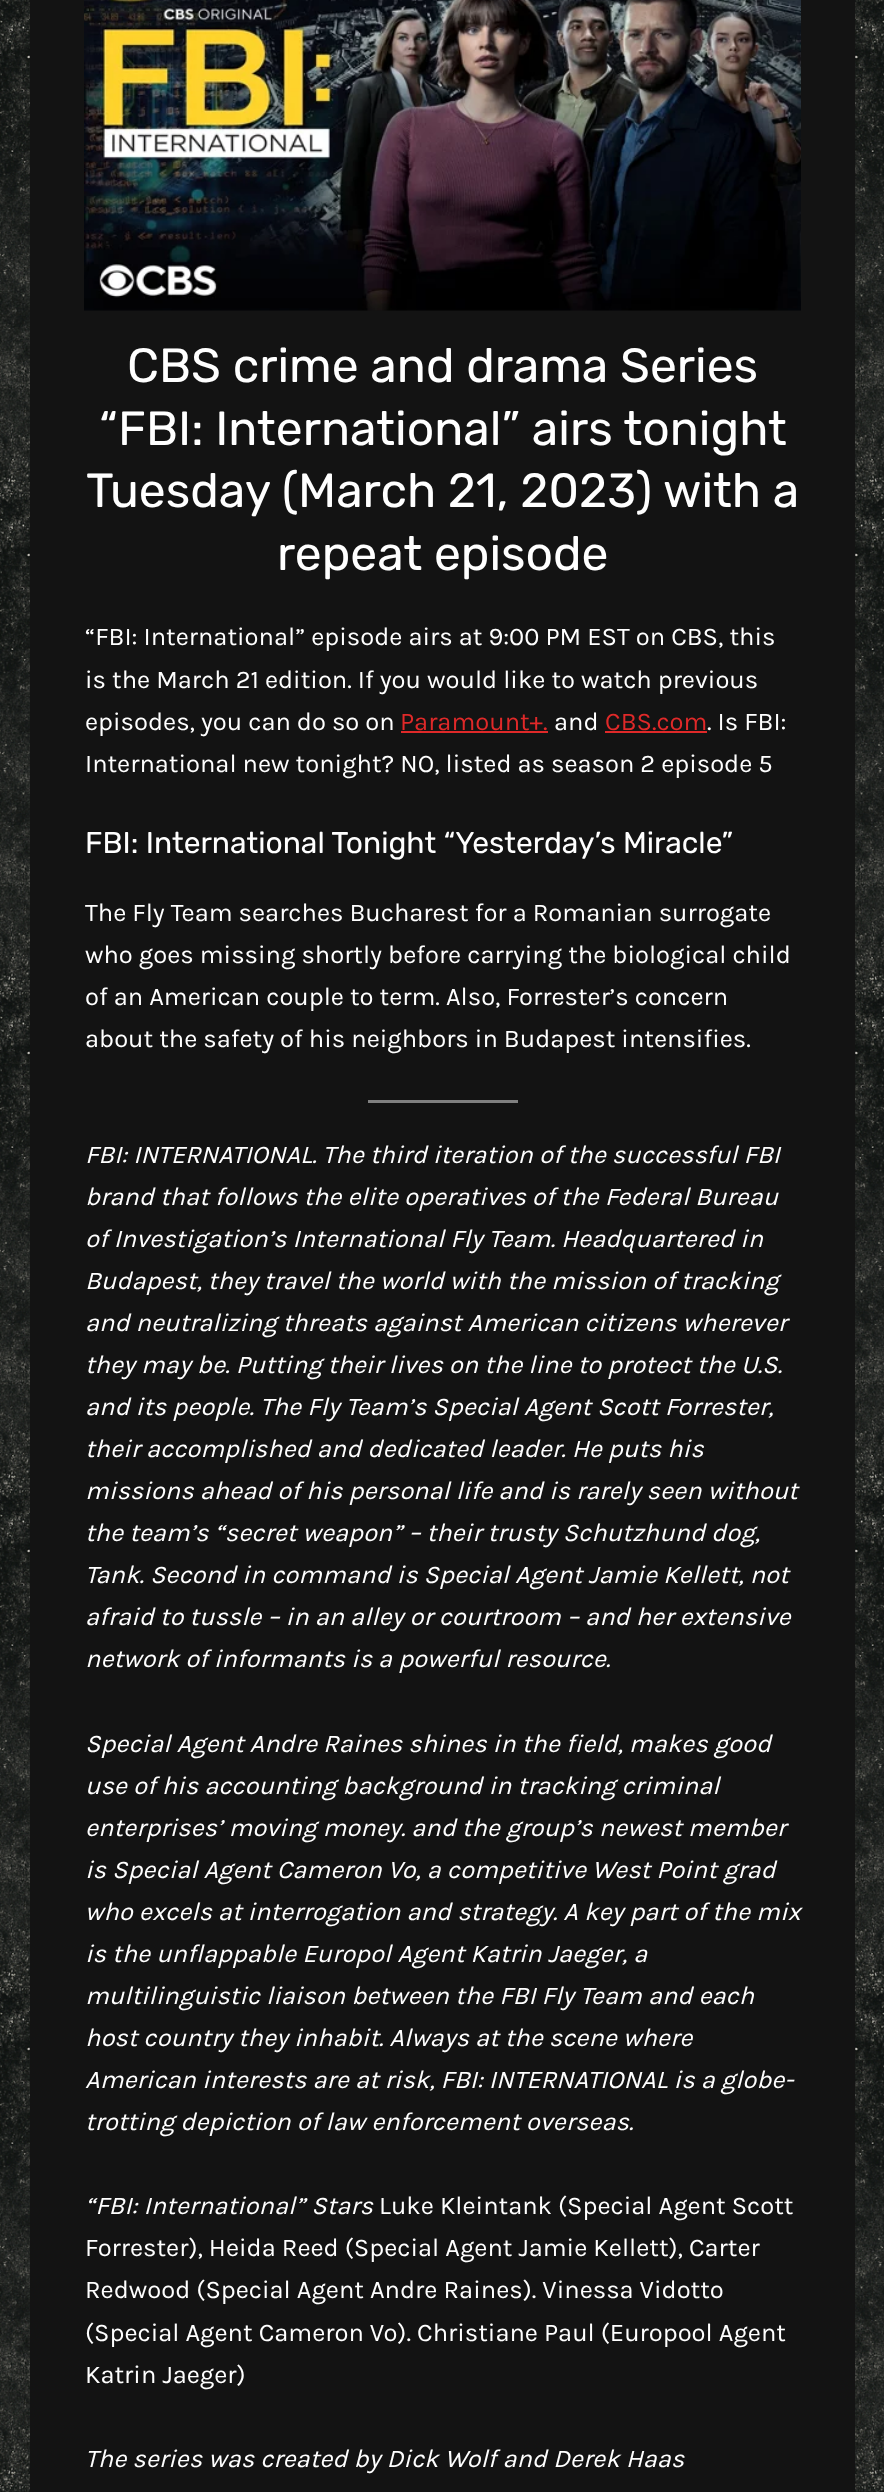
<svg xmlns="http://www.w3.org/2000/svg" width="884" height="2492">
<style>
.a{font:48px Rubik;fill:#fff}
.b{font:25.5px Karla;fill:#fff}
.c{font:25.5px Karla;fill:#e02929}
.d{font:30px Rubik;fill:#fff}
.e{font:italic 25.5px Karla;fill:#fff}
</style>
<rect width="100%" height="100%" fill="#fff"/>
<image href="1.png" x="0" y="0" width="884" height="2492"/>
<path fill="#131313" d="M30 0h825v2492H30z"/>
<image href="2.png" x="84" y="0" width="717" height="311"/>
<path fill="#e02929" d="M401 731h147v2H401z"/>
<path fill="#e02929" d="M605 731h102v2H605z"/>
<path fill="#808080" d="M368 1100h150v3H368z"/>
<text class="a" x="127" y="382">CBS crime and drama Series</text>
<text class="a" x="99" y="445">“FBI: International” airs tonight</text>
<text class="a" x="86" y="507">Tuesday (March 21, 2023) with a</text>
<text class="a" x="277" y="570">repeat episode</text>
<text class="b" x="85" y="645">“FBI: International” episode airs at 9:00 PM EST on CBS, this</text>
<text class="b" x="85" y="688">is the March 21 edition. If you would like to watch previous</text>
<text class="b" x="85" y="730">episodes, you can do so on</text>
<text class="c" x="400" y="730">Paramount+.</text>
<text class="b" x="554" y="730">and</text>
<text class="c" x="605" y="730">CBS.com</text>
<text class="b" x="707" y="730">. Is FBI:</text>
<text class="b" x="85" y="772">International new tonight? NO, listed as season 2 episode 5</text>
<text class="d" x="85" y="853">FBI: International Tonight “Yesterday’s Miracle”</text>
<text class="b" x="85" y="921">The Fly Team searches Bucharest for a Romanian surrogate</text>
<text class="b" x="85" y="963">who goes missing shortly before carrying the biological child</text>
<text class="b" x="85" y="1005">of an American couple to term. Also, Forrester’s concern</text>
<text class="b" x="85" y="1047">about the safety of his neighbors in Budapest intensifies.</text>
<text class="e" x="85" y="1163">FBI: INTERNATIONAL. The third iteration of the successful FBI</text>
<text class="e" x="85" y="1205">brand that follows the elite operatives of the Federal Bureau</text>
<text class="e" x="85" y="1247">of Investigation’s International Fly Team. Headquartered in</text>
<text class="e" x="85" y="1289">Budapest, they travel the world with the mission of tracking</text>
<text class="e" x="85" y="1331">and neutralizing threats against American citizens wherever</text>
<text class="e" x="85" y="1373">they may be. Putting their lives on the line to protect the U.S.</text>
<text class="e" x="85" y="1415">and its people. The Fly Team’s Special Agent Scott Forrester,</text>
<text class="e" x="85" y="1457">their accomplished and dedicated leader. He puts his</text>
<text class="e" x="85" y="1499">missions ahead of his personal life and is rarely seen without</text>
<text class="e" x="85" y="1541">the team’s “secret weapon” – their trusty Schutzhund dog,</text>
<text class="e" x="85" y="1583">Tank. Second in command is Special Agent Jamie Kellett, not</text>
<text class="e" x="85" y="1625">afraid to tussle – in an alley or courtroom – and her extensive</text>
<text class="e" x="85" y="1667">network of informants is a powerful resource.</text>
<text class="e" x="85" y="1752">Special Agent Andre Raines shines in the field, makes good</text>
<text class="e" x="85" y="1794">use of his accounting background in tracking criminal</text>
<text class="e" x="85" y="1836">enterprises’ moving money. and the group’s newest member</text>
<text class="e" x="85" y="1878">is Special Agent Cameron Vo, a competitive West Point grad</text>
<text class="e" x="85" y="1920">who excels at interrogation and strategy. A key part of the mix</text>
<text class="e" x="85" y="1962">is the unflappable Europol Agent Katrin Jaeger, a</text>
<text class="e" x="85" y="2004">multilinguistic liaison between the FBI Fly Team and each</text>
<text class="e" x="85" y="2046">host country they inhabit. Always at the scene where</text>
<text class="e" x="85" y="2088">American interests are at risk, FBI: INTERNATIONAL is a globe-</text>
<text class="e" x="85" y="2130">trotting depiction of law enforcement overseas.</text>
<text class="e" x="85" y="2214">“FBI: International” Stars</text>
<text class="b" x="379" y="2214">Luke Kleintank (Special Agent Scott</text>
<text class="b" x="85" y="2256">Forrester), Heida Reed (Special Agent Jamie Kellett), Carter</text>
<text class="b" x="85" y="2298">Redwood (Special Agent Andre Raines). Vinessa Vidotto</text>
<text class="b" x="85" y="2341">(Special Agent Cameron Vo). Christiane Paul (Europool Agent</text>
<text class="b" x="85" y="2383">Katrin Jaeger)</text>
<text class="e" x="85" y="2467">The series was created by Dick Wolf and Derek Haas</text>
</svg>
